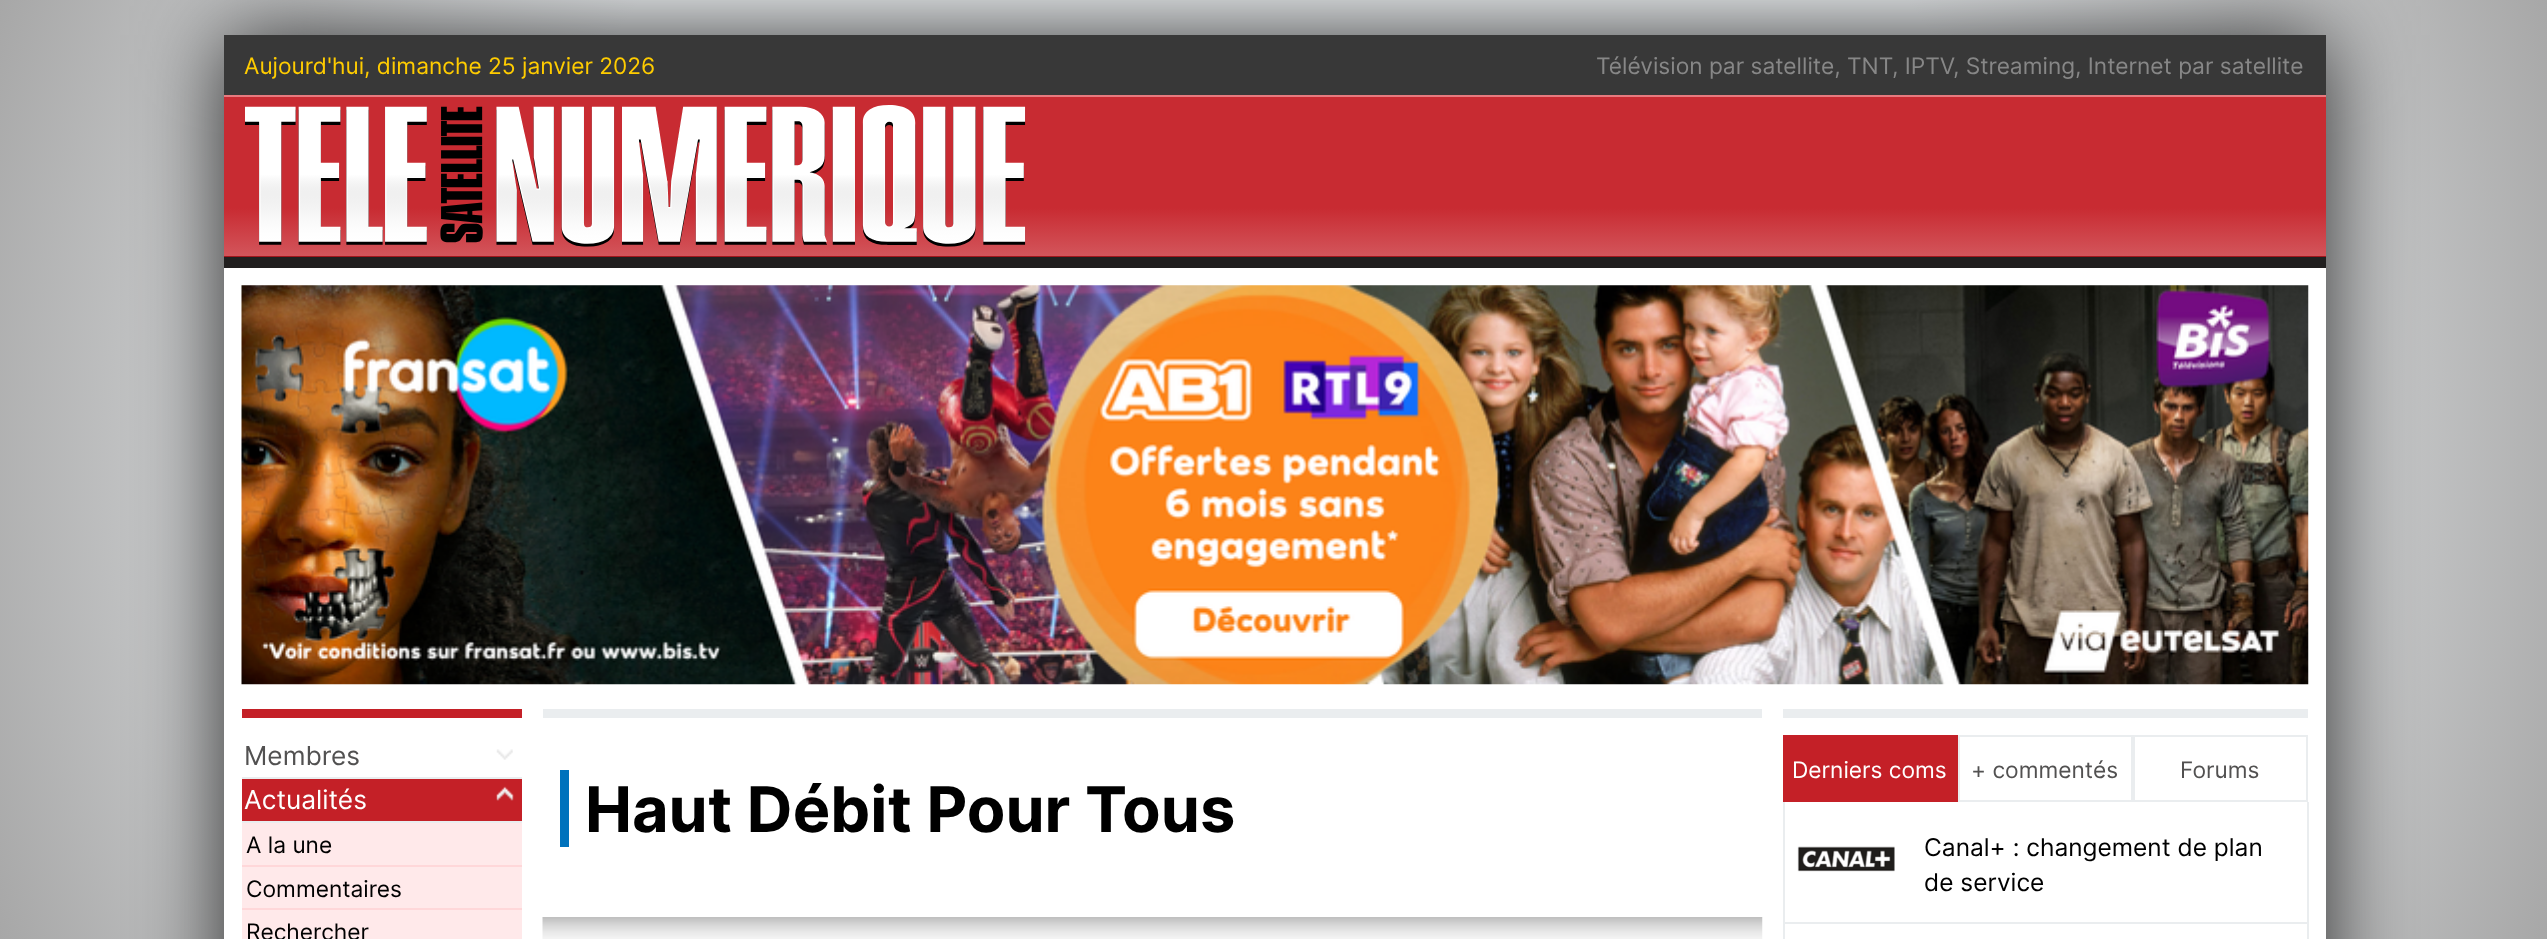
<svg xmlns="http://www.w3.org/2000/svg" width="2547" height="939">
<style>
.a{font:22.75px Inter;fill:#fc0}
.b{font:22.75px Inter;fill:#878787}
.c{font:26.25px Inter;fill:#525151}
.d{font:26.25px Inter;fill:#fff}
.e{font:22.75px Inter;fill:#000}
.f{font:bold 63px Inter;fill:#000}
.g{font:22.75px Inter;fill:#fff}
.h{font:22.75px Inter;fill:#525151}
.i{font:24.5px Inter;fill:#000}
</style>
<defs>
<radialGradient id="g1" gradientUnits="userSpaceOnUse" cx="1274" cy="470" r="1358"><stop offset="0.58" stop-color="#eaedef"/><stop offset="1" stop-color="#a7a7a7"/></radialGradient>
<linearGradient id="g2" gradientUnits="userSpaceOnUse" x1="1275" y1="96" x2="1275" y2="256"><stop offset="0.7" stop-color="#c82b32"/><stop offset="1" stop-color="#d3555b"/></linearGradient>
</defs>
<rect width="100%" height="100%" fill="#fff"/>
<path fill="url(#g1)" d="M0 0h2547v939H0z"/>
<path fill="#000000cc" filter="blur(44px)" d="M224 35h2102v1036H224z"/>
<path fill="#fff" d="M224 268h2102v671H224z"/>
<path fill="#383838" d="M224 35h2102v60H224z"/>
<path fill="url(#g2)" d="M224 97h2102v159H224z"/>
<path fill="#e77a7f" d="M224 95h2102v2H224z"/>
<path fill="#a1161c" d="M224 256h2102v1H224z"/>
<image href="1.png" x="245" y="105" width="781" height="142"/>
<path fill="#211f1f" d="M224 257h2102v11H224z"/>
<image href="2.png" x="241" y="285" width="2068" height="400"/>
<path fill="#c42027" d="M242 709h280v9H242z"/>
<path fill="#eaedef" d="M242 777h280v2H242z"/>
<image href="3.png" x="496" y="749" width="17" height="11"/>
<path fill="#c42027" d="M242 779h280v42H242z"/>
<path fill="#eaedef" d="M242 821h280v2H242z"/>
<image href="4.png" x="496" y="786" width="18" height="15"/>
<path fill="#ffe9ea" d="M242 823h280v116H242z"/>
<path fill="#ffd7d9" d="M242 865h280v2H242z"/>
<path fill="#ffd7d9" d="M242 908h280v2H242z"/>
<path fill="#eaedef" d="M543 709h1219v9H543z"/>
<path fill="#0072bc" d="M560 770h9v77H560z"/>
<image href="5.png" x="542" y="917" width="1221" height="22"/>
<path fill="#eaedef" d="M1783 709h525v9H1783z"/>
<path fill="#c42027" d="M1783 735h175v67H1783z"/>
<path fill="none" stroke="#eaedef" stroke-width="2" d="M1959 736h173v65H1959z"/>
<path fill="none" stroke="#eaedef" stroke-width="2" d="M2134 736h173v65H2134z"/>
<path fill="#eaedef" d="M2307 802h2v137H2307z"/>
<path fill="#eaedef" d="M1783 802h2v137H1783z"/>
<path fill="#eaedef" d="M1785 922h522v2H1785z"/>
<image href="6.png" x="1797" y="846" width="98" height="26"/>
<text class="a" x="244" y="74">Aujourd'hui, dimanche 25 janvier 2026</text>
<text class="b" x="1596" y="74">Télévision par satellite, TNT</text>
<text class="b" x="1892" y="74">, IPTV</text>
<text class="b" x="1953" y="74">, Streaming, Internet par satellite</text>
<text class="c" x="244" y="765">Membres</text>
<text class="d" x="244" y="809">Actualités</text>
<text class="e" x="246" y="853">A la une</text>
<text class="e" x="246" y="897">Commentaires</text>
<text class="e" x="246" y="940">Rechercher</text>
<text class="f" x="585" y="832">Haut Débit Pour Tous</text>
<text class="g" x="1792" y="778">Derniers coms</text>
<text class="h" x="1971" y="778">+ commentés</text>
<text class="h" x="2180" y="778">Forums</text>
<text class="i" x="1924" y="856">Canal+ : changement de plan</text>
<text class="i" x="1924" y="891">de service</text>
</svg>
